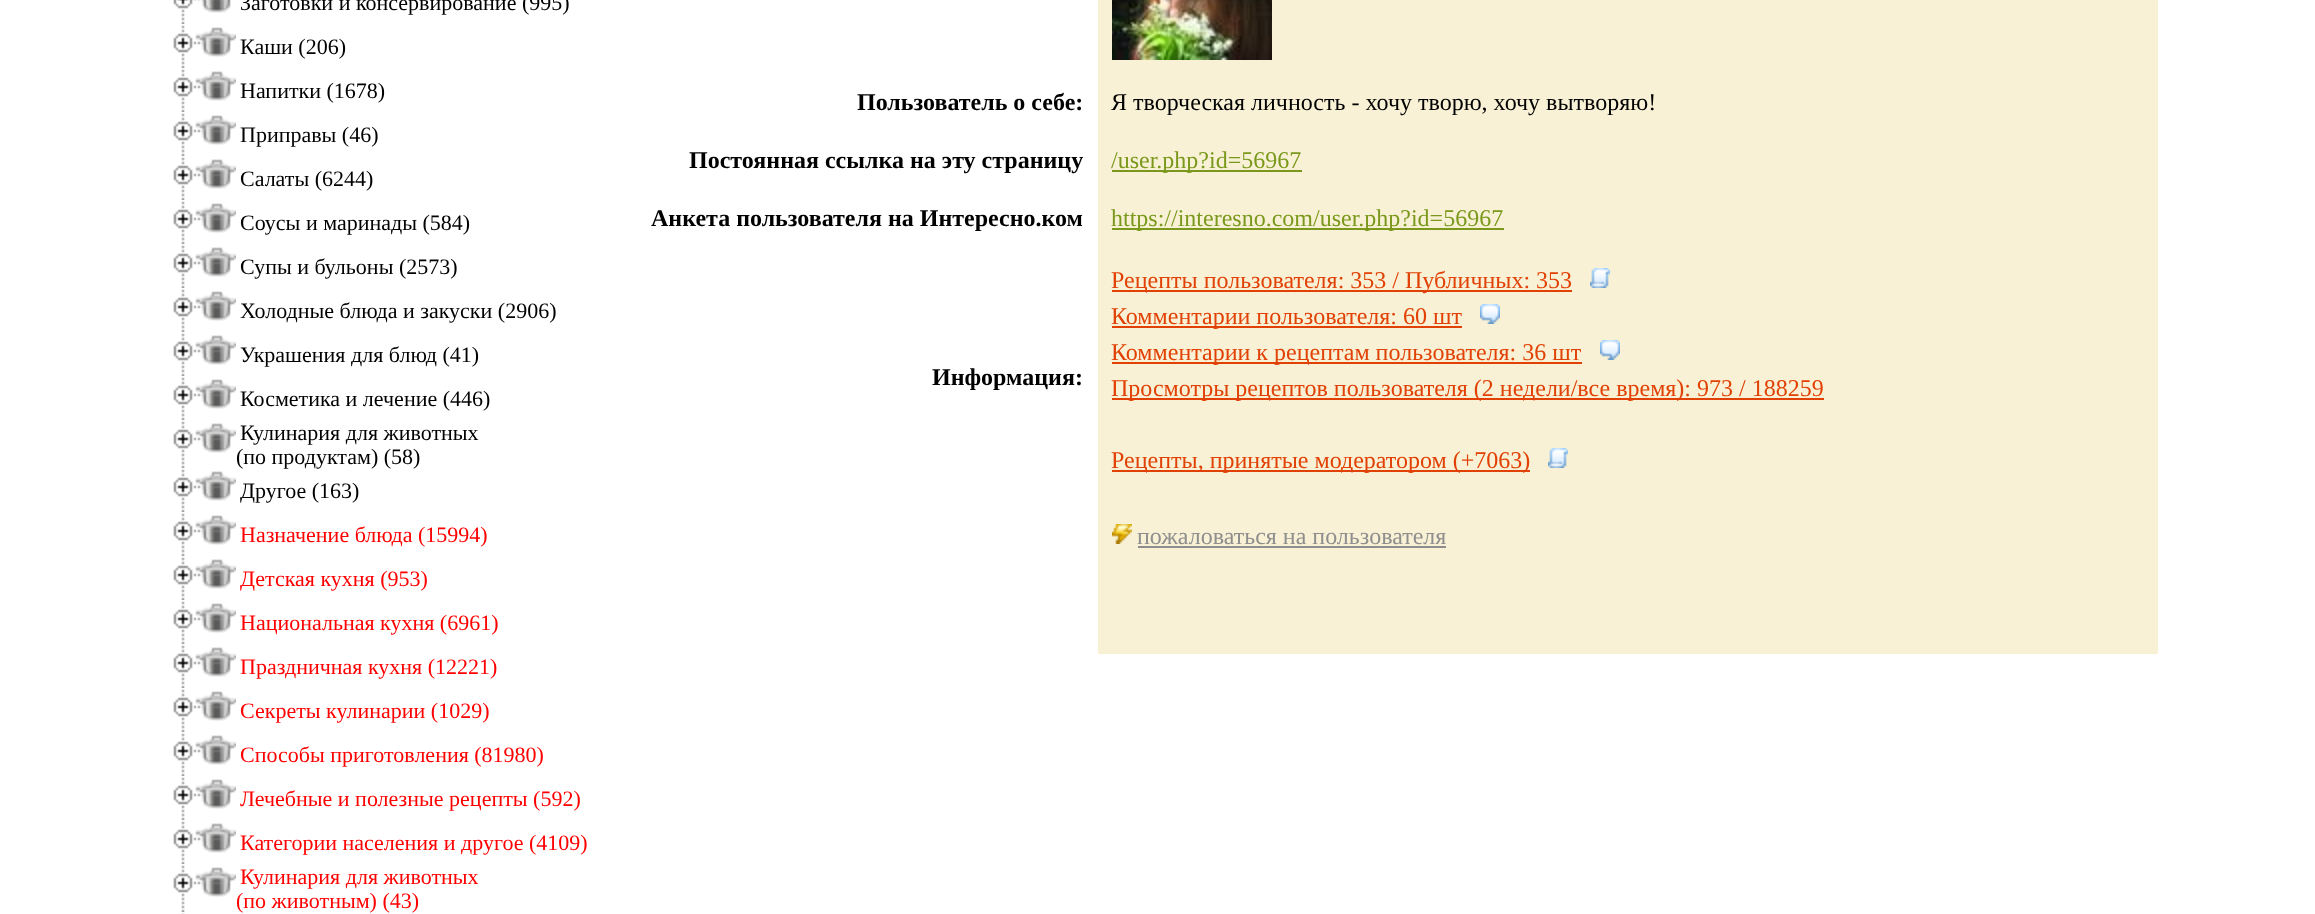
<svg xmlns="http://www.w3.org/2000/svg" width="2315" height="914">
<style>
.a{font:22px Liberation Serif;fill:#000}
.b{font:22px Liberation Serif;fill:#f00}
.c{font:bold 24px Liberation Serif;fill:#000}
.d{font:24px Liberation Serif;fill:#000}
.e{font:24px Liberation Serif;fill:#7a991c}
.f{font:24px Liberation Serif;fill:#e14105}
.g{font:24px Liberation Serif;fill:#8e8e8e}
</style>
<rect width="100%" height="100%" fill="#fff"/>
<image href="1.png" x="173" y="0" width="58" height="24"/>
<image href="2.png" x="173" y="25" width="63" height="43"/>
<image href="2.png" x="173" y="69" width="63" height="43"/>
<image href="2.png" x="173" y="113" width="63" height="43"/>
<image href="2.png" x="173" y="157" width="63" height="43"/>
<image href="2.png" x="173" y="201" width="63" height="43"/>
<image href="2.png" x="173" y="245" width="63" height="43"/>
<image href="2.png" x="173" y="289" width="63" height="43"/>
<image href="2.png" x="173" y="333" width="63" height="43"/>
<image href="2.png" x="173" y="377" width="63" height="43"/>
<image href="3.png" x="173" y="421" width="63" height="47"/>
<image href="2.png" x="173" y="469" width="63" height="43"/>
<image href="2.png" x="173" y="513" width="63" height="43"/>
<image href="2.png" x="173" y="557" width="63" height="43"/>
<image href="2.png" x="173" y="601" width="63" height="43"/>
<image href="2.png" x="173" y="645" width="63" height="43"/>
<image href="2.png" x="173" y="689" width="63" height="43"/>
<image href="2.png" x="173" y="733" width="63" height="43"/>
<image href="2.png" x="173" y="777" width="63" height="43"/>
<image href="2.png" x="173" y="821" width="63" height="43"/>
<image href="3.png" x="173" y="865" width="63" height="47"/>
<image href="4.png" x="181" y="913" width="4" height="1"/>
<path fill="#f8f1d5" d="M1098 0h1060v654H1098z"/>
<image href="5.png" x="1112" y="0" width="160" height="60"/>
<path fill="#7a991c" d="M1112 170h190v2H1112z"/>
<path fill="#7a991c" d="M1112 228h392v2H1112z"/>
<path fill="#e14105" d="M1112 290h460v2H1112z"/>
<image href="6.png" x="1590" y="268" width="20" height="20"/>
<path fill="#e14105" d="M1112 326h350v2H1112z"/>
<image href="7.png" x="1480" y="304" width="20" height="20"/>
<path fill="#e14105" d="M1112 362h470v2H1112z"/>
<image href="7.png" x="1600" y="340" width="20" height="20"/>
<path fill="#e14105" d="M1112 398h712v2H1112z"/>
<path fill="#e14105" d="M1112 470h418v2H1112z"/>
<image href="6.png" x="1548" y="448" width="20" height="20"/>
<image href="8.png" x="1112" y="524" width="20" height="20"/>
<path fill="#8e8e8e" d="M1138 546h308v2H1138z"/>
<text class="a" x="240" y="10">Заготовки и консервирование (995)</text>
<text class="a" x="240" y="54">Каши (206)</text>
<text class="a" x="240" y="98">Напитки (1678)</text>
<text class="a" x="240" y="142">Приправы (46)</text>
<text class="a" x="240" y="186">Салаты (6244)</text>
<text class="a" x="240" y="230">Соусы и маринады (584)</text>
<text class="a" x="240" y="274">Супы и бульоны (2573)</text>
<text class="a" x="240" y="318">Холодные блюда и закуски (2906)</text>
<text class="a" x="240" y="362">Украшения для блюд (41)</text>
<text class="a" x="240" y="406">Косметика и лечение (446)</text>
<text class="a" x="240" y="440">Кулинария для животных</text>
<text class="a" x="236" y="464">(по продуктам) (58)</text>
<text class="a" x="240" y="498">Другое (163)</text>
<text class="b" x="240" y="542">Назначение блюда (15994)</text>
<text class="b" x="240" y="586">Детская кухня (953)</text>
<text class="b" x="240" y="630">Национальная кухня (6961)</text>
<text class="b" x="240" y="674">Праздничная кухня (12221)</text>
<text class="b" x="240" y="718">Секреты кулинарии (1029)</text>
<text class="b" x="240" y="762">Способы приготовления (81980)</text>
<text class="b" x="240" y="806">Лечебные и полезные рецепты (592)</text>
<text class="b" x="240" y="850">Категории населения и другое (4109)</text>
<text class="b" x="240" y="884">Кулинария для животных</text>
<text class="b" x="236" y="908">(по животным) (43)</text>
<text class="c" x="857" y="110">Пользователь о себе:</text>
<text class="d" x="1111" y="110">Я творческая личность - хочу творю, хочу вытворяю!</text>
<text class="c" x="689" y="168">Постоянная ссылка на эту страницу</text>
<text class="e" x="1111" y="168">/user.php?id=56967</text>
<text class="c" x="651" y="226">Анкета пользователя на Интересно.ком</text>
<text class="e" x="1111" y="226">https://interesno.com/user.php?id=56967</text>
<text class="c" x="932" y="385">Информация:</text>
<text class="f" x="1111" y="288">Рецепты пользователя: 353 / Публичных: 353</text>
<text class="f" x="1111" y="324">Комментарии пользователя: 60 шт</text>
<text class="f" x="1111" y="360">Комментарии к рецептам пользователя: 36 шт</text>
<text class="f" x="1111" y="396">Просмотры рецептов пользователя (2 недели/все время): 973 / 188259</text>
<text class="f" x="1111" y="468">Рецепты, принятые модератором (+7063)</text>
<text class="g" x="1137" y="544">пожаловаться на пользователя</text>
</svg>
